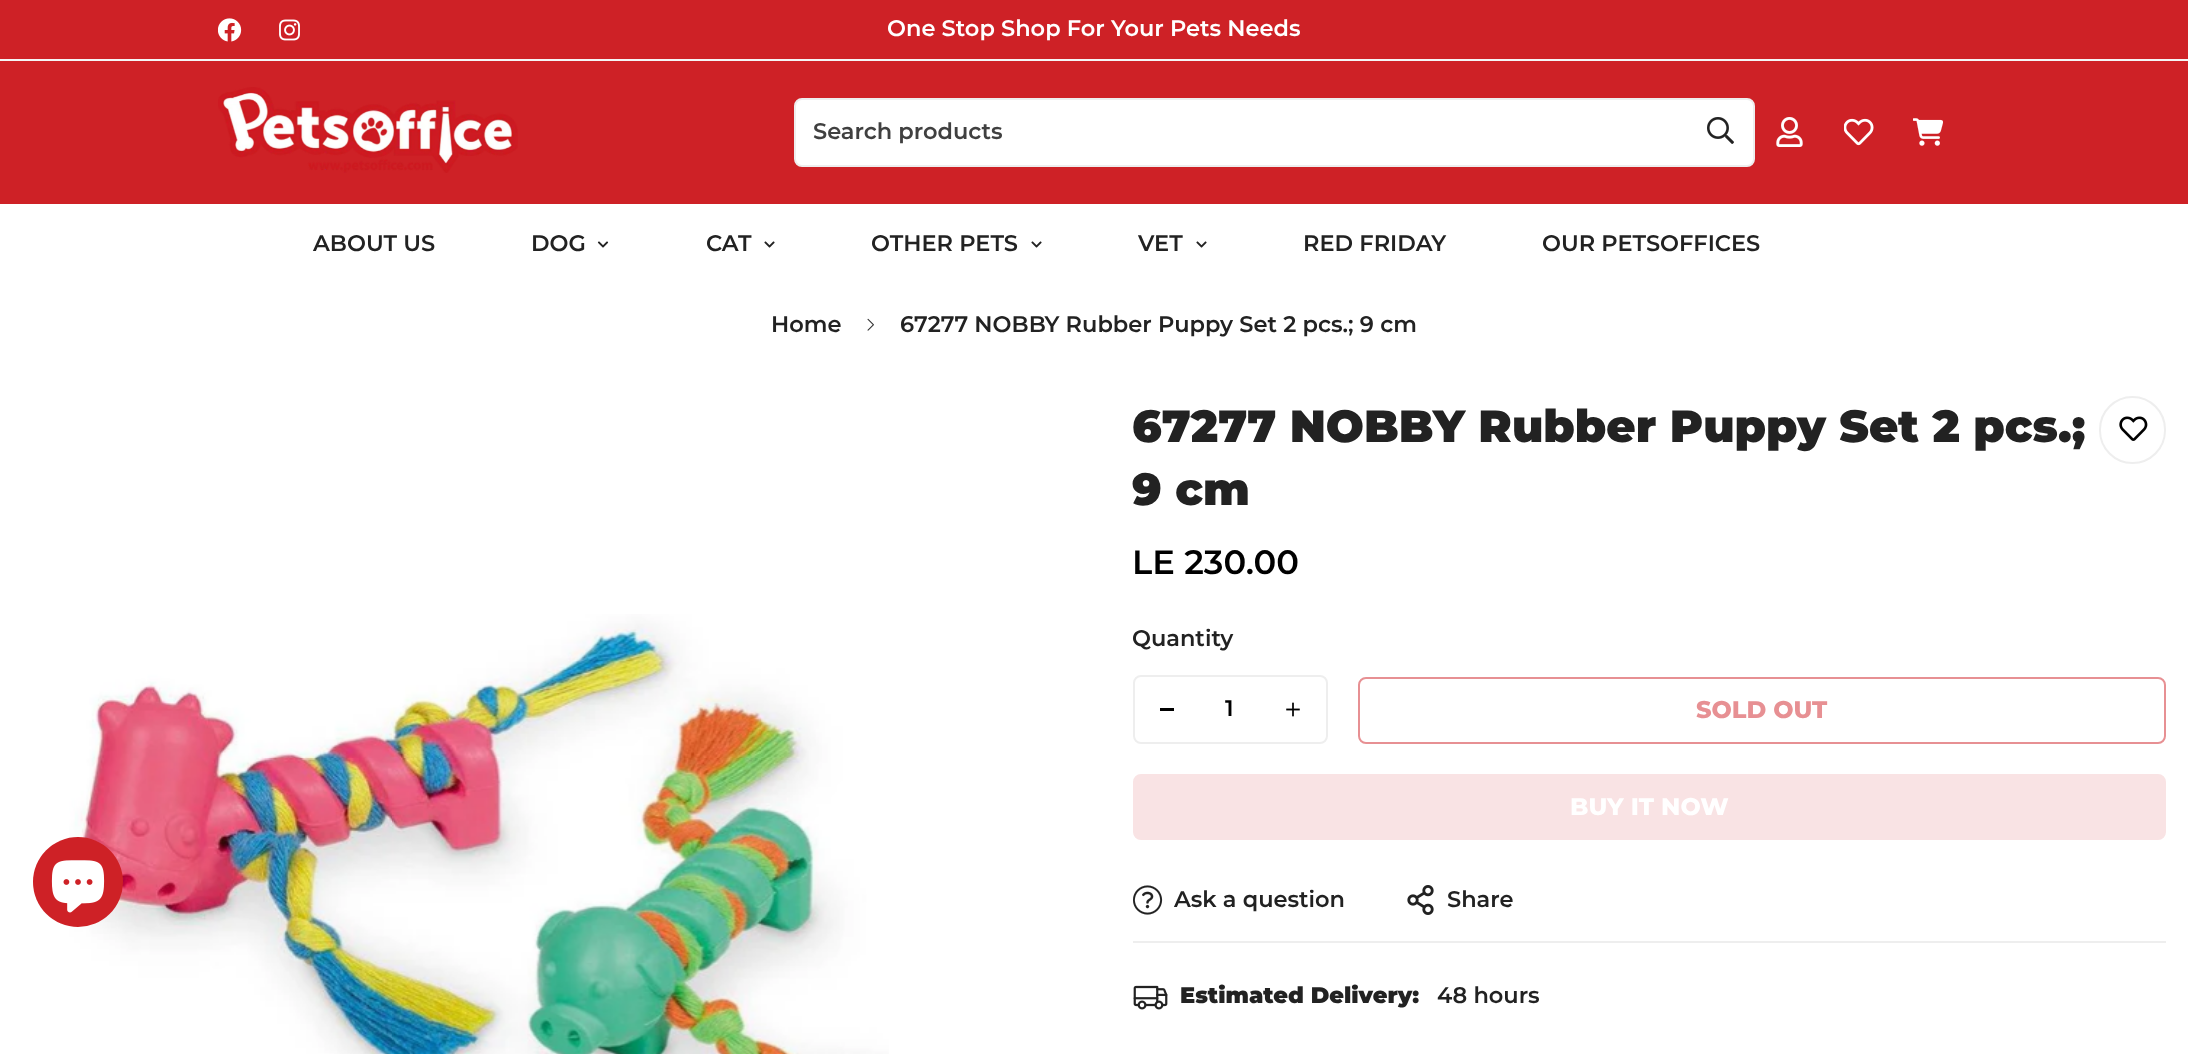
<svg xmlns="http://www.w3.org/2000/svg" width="2188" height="1054">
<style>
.a{font:600 22.5px Montserrat;fill:#fff}
.b{font:600 22.5px Montserrat;fill:#404040}
.c{font:600 22.5px Montserrat;fill:#222}
.d{font:900 45px Montserrat;fill:#222}
.e{font:600 33.75px Montserrat;fill:#000}
.f{font:600 22.5px Montserrat;fill:#000}
.g{font:800 24px Montserrat;fill:#e79093}
.h{font:800 24px Montserrat;fill:#fff}
.i{font:900 22.5px Montserrat;fill:#222}
</style>
<rect width="100%" height="100%" fill="#fff"/>
<path fill="#ce2126" d="M0 0h2188v59H0z"/>
<path fill="#f5f5f5" d="M0 59h2188v2H0z"/>
<image href="1.png" x="218" y="18" width="24" height="24"/>
<image href="2.png" x="279" y="19" width="21" height="22"/>
<path fill="#ce2126" d="M0 61h2188v143H0z"/>
<image href="3.png" x="218" y="87" width="300" height="86"/>
<rect fill="#fff" stroke="#eee" stroke-width="2" x="795" y="99" width="959" height="67" rx="7"/>
<image href="4.png" x="1707" y="117" width="27" height="27"/>
<image href="5.png" x="1776" y="117" width="27" height="30"/>
<image href="6.png" x="1844" y="118" width="30" height="28"/>
<image href="7.png" x="1913" y="118" width="30" height="28"/>
<image href="8.png" x="597" y="241" width="12" height="7"/>
<image href="9.png" x="764" y="241" width="11" height="7"/>
<image href="9.png" x="1031" y="241" width="11" height="7"/>
<image href="9.png" x="1196" y="241" width="11" height="7"/>
<image href="12.png" x="69" y="614" width="820" height="440"/>
<circle fill="#ce2126" cx="78" cy="882" r="45"/>
<image href="10.png" x="51" y="860" width="54" height="53"/>
<image href="11.png" x="867" y="318" width="7" height="13"/>
<rect fill="none" stroke="#eee" stroke-width="2" x="2100" y="397" width="65" height="66" rx="32.5"/>
<image href="13.png" x="2119" y="416" width="29" height="25"/>
<rect fill="none" stroke="#eee" stroke-width="2" x="1134" y="676" width="193" height="67" rx="7"/>
<path fill="#000" d="M1160 708h14v3H1160z"/>
<image href="14.png" x="1286" y="702" width="14" height="15"/>
<rect fill="none" stroke="#e79093" stroke-width="2" x="1359" y="678" width="806" height="65" rx="7"/>
<rect fill="#f9e3e4" stroke="#f9e3e4" stroke-width="2" x="1134" y="775" width="1031" height="64" rx="7"/>
<path fill="#eee" d="M1133 941h1033v2H1133z"/>
<image href="15.png" x="1133" y="885" width="30" height="30"/>
<image href="16.png" x="1407" y="885" width="27" height="30"/>
<image href="17.png" x="1133" y="985" width="35" height="25"/>
<text class="a" x="887" y="36">One Stop Shop For Your Pets Needs</text>
<text class="b" x="813" y="139">Search products</text>
<text class="c" x="313" y="251">ABOUT US</text>
<text class="c" x="531" y="251">DOG</text>
<text class="c" x="706" y="251">CAT</text>
<text class="c" x="871" y="251">OTHER PETS</text>
<text class="c" x="1138" y="251">VET</text>
<text class="c" x="1303" y="251">RED FRIDAY</text>
<text class="c" x="1542" y="251">OUR PETSOFFICES</text>
<text class="c" x="771" y="332">Home</text>
<text class="c" x="900" y="332">67277 NOBBY Rubber Puppy Set 2 pcs.; 9 cm</text>
<text class="d" x="1132" y="442">67277 NOBBY Rubber Puppy Set 2 pcs.;</text>
<text class="d" x="1132" y="505">9 cm</text>
<text class="e" x="1132" y="574">LE 230.00</text>
<text class="c" x="1132" y="646">Quantity</text>
<text class="f" x="1225" y="716">1</text>
<text class="g" x="1696" y="718">SOLD OUT</text>
<text class="h" x="1570" y="815">BUY IT NOW</text>
<text class="c" x="1174" y="907">Ask a question</text>
<text class="c" x="1447" y="907">Share</text>
<text class="i" x="1180" y="1003">Estimated Delivery:</text>
<text class="c" x="1437" y="1003">48 hours</text>
</svg>
